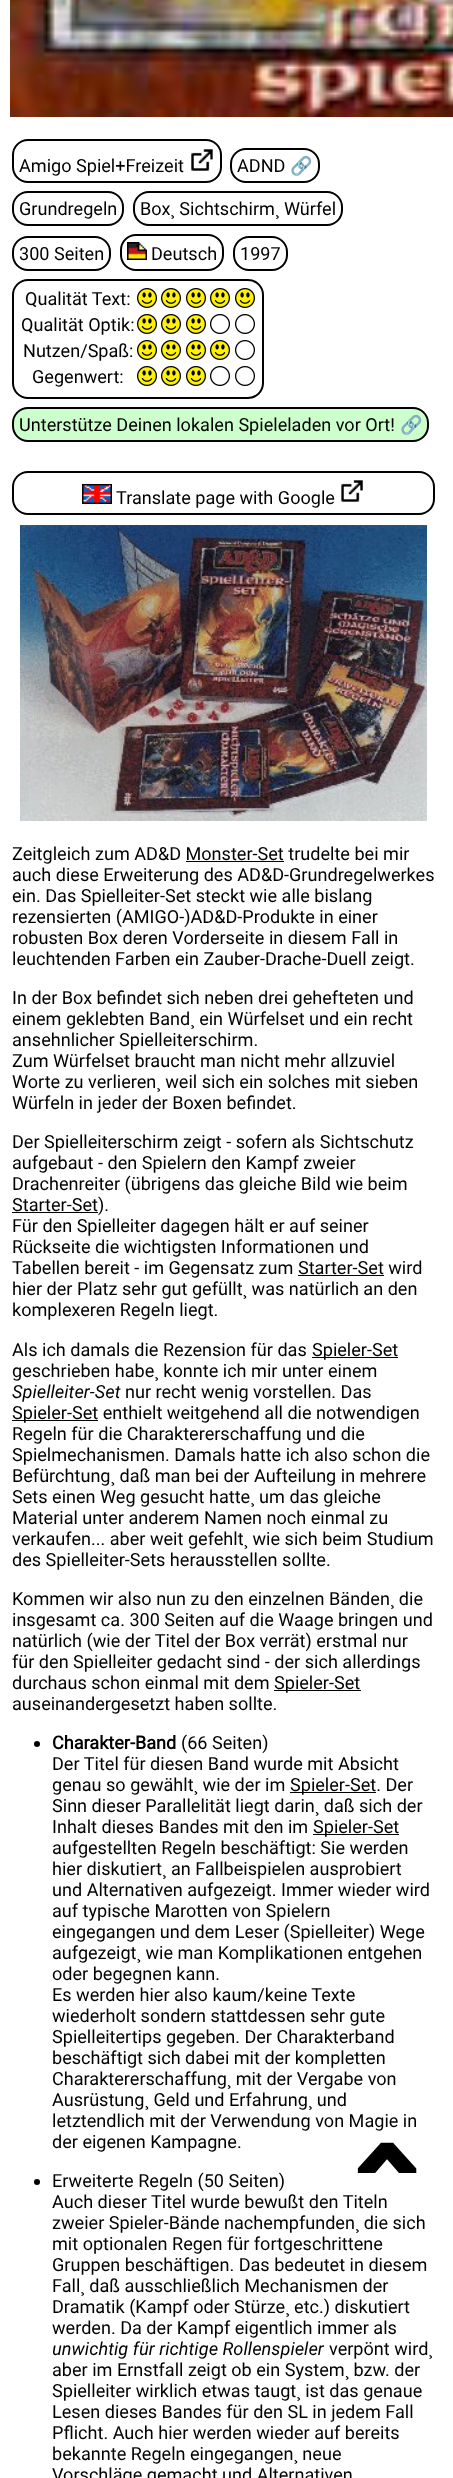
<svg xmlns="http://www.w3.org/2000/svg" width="453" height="2478">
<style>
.a{font:18.1px Roboto;fill:#000}
.b{font:18.1px Noto Color Emoji;fill:#000}
.c{font:italic 18.1px Roboto;fill:#000}
.d{font:bold 18.1px Roboto;fill:#000}
.e{font:bold 180px Roboto;fill:#000}
</style>
<rect width="100%" height="100%" fill="#fff"/>
<image href="1.png" x="10" y="0" width="443" height="117"/>
<rect fill="none" stroke="#000" stroke-width="2" x="13" y="140" width="208" height="42" rx="15"/>
<image href="2.png" x="191" y="149" width="22" height="22"/>
<rect fill="none" stroke="#000" stroke-width="2" x="231" y="149" width="88" height="33" rx="15"/>
<rect fill="none" stroke="#000" stroke-width="2" x="13" y="192" width="110" height="33" rx="15"/>
<rect fill="none" stroke="#000" stroke-width="2" x="134" y="192" width="208" height="33" rx="15"/>
<rect fill="none" stroke="#000" stroke-width="2" x="13" y="237" width="97" height="33" rx="15"/>
<rect fill="none" stroke="#000" stroke-width="2" x="121" y="235" width="102" height="35" rx="15"/>
<image href="3.png" x="127" y="242" width="20" height="18"/>
<rect fill="none" stroke="#000" stroke-width="2" x="234" y="237" width="53" height="33" rx="15"/>
<rect fill="none" stroke="#000" stroke-width="2" x="13" y="280" width="250" height="118" rx="15"/>
<image href="4.png" x="137" y="288" width="20" height="20"/>
<image href="4.png" x="161" y="288" width="20" height="20"/>
<image href="4.png" x="186" y="288" width="20" height="20"/>
<image href="4.png" x="210" y="288" width="20" height="20"/>
<image href="4.png" x="235" y="288" width="20" height="20"/>
<image href="4.png" x="137" y="314" width="20" height="20"/>
<image href="4.png" x="161" y="314" width="20" height="20"/>
<image href="4.png" x="186" y="314" width="20" height="20"/>
<image href="5.png" x="210" y="314" width="20" height="20"/>
<image href="5.png" x="235" y="314" width="20" height="20"/>
<image href="4.png" x="137" y="340" width="20" height="20"/>
<image href="4.png" x="161" y="340" width="20" height="20"/>
<image href="4.png" x="186" y="340" width="20" height="20"/>
<image href="4.png" x="210" y="340" width="20" height="20"/>
<image href="5.png" x="235" y="340" width="20" height="20"/>
<image href="4.png" x="137" y="366" width="20" height="20"/>
<image href="4.png" x="161" y="366" width="20" height="20"/>
<image href="4.png" x="186" y="366" width="20" height="20"/>
<image href="5.png" x="210" y="366" width="20" height="20"/>
<image href="5.png" x="235" y="366" width="20" height="20"/>
<rect fill="#cfc" stroke="#000" stroke-width="2" x="13" y="408" width="415" height="33" rx="15"/>
<rect fill="none" stroke="#000" stroke-width="2" x="13" y="472" width="421" height="42" rx="15"/>
<image href="6.png" x="82" y="484" width="30" height="20"/>
<image href="7.png" x="341" y="480" width="22" height="22"/>
<image href="8.png" x="20" y="525" width="407" height="296"/>
<path fill="#000" d="M186 861h98v1H186z"/>
<path fill="#000" d="M12 1212h86v1H12z"/>
<path fill="#000" d="M298 1275h86v1H298z"/>
<path fill="#000" d="M312 1357h86v1H312z"/>
<path fill="#000" d="M12 1420h86v1H12z"/>
<path fill="#000" d="M274 1690h87v1H274z"/>
<circle fill="#000" cx="37" cy="1744" r="3"/>
<path fill="#000" d="M290 1792h86v1H290z"/>
<path fill="#000" d="M313 1834h86v1H313z"/>
<circle fill="#000" cx="37" cy="2182" r="3"/>
<text class="a" x="19" y="172">Amigo Spiel+Freizeit</text>
<text class="a" x="237" y="172">ADND</text>
<text class="b" x="290" y="172">🔗</text>
<text class="a" x="19" y="215">Grundregeln</text>
<text class="a" x="140" y="215">Box¸ Sichtschirm¸ Würfel</text>
<text class="a" x="19" y="260">300 Seiten</text>
<text class="a" x="151" y="260">Deutsch</text>
<text class="a" x="240" y="260">1997</text>
<text class="a" x="25" y="305">Qualität Text:</text>
<text class="a" x="21" y="331">Qualität Optik:</text>
<text class="a" x="23" y="357">Nutzen/Spaß:</text>
<text class="a" x="32" y="383">Gegenwert:</text>
<text class="a" x="19" y="431">Unterstütze Deinen lokalen Spieleladen vor Ort!</text>
<text class="b" x="400" y="431">🔗</text>
<text class="a" x="116" y="504">Translate page with Google</text>
<text class="a" x="12" y="860">Zeitgleich zum AD&amp;D Monster-Set trudelte bei mir</text>
<text class="a" x="12" y="881">auch diese Erweiterung des AD&amp;D-Grundregelwerkes</text>
<text class="a" x="12" y="902">ein. Das Spielleiter-Set steckt wie alle bislang</text>
<text class="a" x="12" y="923">rezensierten (AMIGO-)AD&amp;D-Produkte in einer</text>
<text class="a" x="12" y="944">robusten Box deren Vorderseite in diesem Fall in</text>
<text class="a" x="12" y="965">leuchtenden Farben ein Zauber-Drache-Duell zeigt.</text>
<text class="a" x="12" y="1004">In der Box befindet sich neben drei gehefteten und</text>
<text class="a" x="12" y="1025">einem geklebten Band¸ ein Würfelset und ein recht</text>
<text class="a" x="12" y="1046">ansehnlicher Spielleiterschirm.</text>
<text class="a" x="12" y="1067">Zum Würfelset braucht man nicht mehr allzuviel</text>
<text class="a" x="12" y="1088">Worte zu verlieren¸ weil sich ein solches mit sieben</text>
<text class="a" x="12" y="1109">Würfeln in jeder der Boxen befindet.</text>
<text class="a" x="12" y="1148">Der Spielleiterschirm zeigt - sofern als Sichtschutz</text>
<text class="a" x="12" y="1169">aufgebaut - den Spielern den Kampf zweier</text>
<text class="a" x="12" y="1190">Drachenreiter (übrigens das gleiche Bild wie beim</text>
<text class="a" x="12" y="1211">Starter-Set).</text>
<text class="a" x="12" y="1232">Für den Spielleiter dagegen hält er auf seiner</text>
<text class="a" x="12" y="1253">Rückseite die wichtigsten Informationen und</text>
<text class="a" x="12" y="1274">Tabellen bereit - im Gegensatz zum Starter-Set wird</text>
<text class="a" x="12" y="1295">hier der Platz sehr gut gefüllt¸ was natürlich an den</text>
<text class="a" x="12" y="1316">komplexeren Regeln liegt.</text>
<text class="a" x="12" y="1356">Als ich damals die Rezension für das</text>
<text class="a" x="312" y="1356">Spieler-Set</text>
<text class="a" x="12" y="1377">geschrieben habe¸ konnte ich mir unter einem</text>
<text class="c" x="12" y="1398">Spielleiter-Set</text>
<text class="a" x="125" y="1398">nur recht wenig vorstellen. Das</text>
<text class="a" x="12" y="1419">Spieler-Set enthielt weitgehend all die notwendigen</text>
<text class="a" x="12" y="1440">Regeln für die Charaktererschaffung und die</text>
<text class="a" x="12" y="1461">Spielmechanismen. Damals hatte ich also schon die</text>
<text class="a" x="12" y="1482">Befürchtung¸ daß man bei der Aufteilung in mehrere</text>
<text class="a" x="12" y="1503">Sets einen Weg gesucht hatte¸ um das gleiche</text>
<text class="a" x="12" y="1524">Material unter anderem Namen noch einmal zu</text>
<text class="a" x="12" y="1545">verkaufen... aber weit gefehlt¸ wie sich beim Studium</text>
<text class="a" x="12" y="1566">des Spielleiter-Sets herausstellen sollte.</text>
<text class="a" x="12" y="1605">Kommen wir also nun zu den einzelnen Bänden¸ die</text>
<text class="a" x="12" y="1626">insgesamt ca. 300 Seiten auf die Waage bringen und</text>
<text class="a" x="12" y="1647">natürlich (wie der Titel der Box verrät) erstmal nur</text>
<text class="a" x="12" y="1668">für den Spielleiter gedacht sind - der sich allerdings</text>
<text class="a" x="12" y="1689">durchaus schon einmal mit dem</text>
<text class="a" x="274" y="1689">Spieler-Set</text>
<text class="a" x="12" y="1710">auseinandergesetzt haben sollte.</text>
<text class="d" x="52" y="1749">Charakter-Band</text>
<text class="a" x="181" y="1749">(66 Seiten)</text>
<text class="a" x="52" y="1770">Der Titel für diesen Band wurde mit Absicht</text>
<text class="a" x="52" y="1791">genau so gewählt¸ wie der im</text>
<text class="a" x="290" y="1791">Spieler-Set. Der</text>
<text class="a" x="52" y="1812">Sinn dieser Parallelität liegt darin¸ daß sich der</text>
<text class="a" x="52" y="1833">Inhalt dieses Bandes mit den im</text>
<text class="a" x="313" y="1833">Spieler-Set</text>
<text class="a" x="52" y="1854">aufgestellten Regeln beschäftigt: Sie werden</text>
<text class="a" x="52" y="1875">hier diskutiert¸ an Fallbeispielen ausprobiert</text>
<text class="a" x="52" y="1896">und Alternativen aufgezeigt. Immer wieder wird</text>
<text class="a" x="52" y="1917">auf typische Marotten von Spielern</text>
<text class="a" x="52" y="1938">eingegangen und dem Leser (Spielleiter) Wege</text>
<text class="a" x="52" y="1959">aufgezeigt¸ wie man Komplikationen entgehen</text>
<text class="a" x="52" y="1980">oder begegnen kann.</text>
<text class="a" x="52" y="2001">Es werden hier also kaum/keine Texte</text>
<text class="a" x="52" y="2022">wiederholt sondern stattdessen sehr gute</text>
<text class="a" x="52" y="2043">Spielleitertips gegeben. Der Charakterband</text>
<text class="a" x="52" y="2064">beschäftigt sich dabei mit der kompletten</text>
<text class="a" x="52" y="2085">Charaktererschaffung¸ mit der Vergabe von</text>
<text class="a" x="52" y="2106">Ausrüstung¸ Geld und Erfahrung¸ und</text>
<text class="a" x="52" y="2127">letztendlich mit der Verwendung von Magie in</text>
<text class="a" x="52" y="2148">der eigenen Kampagne.</text>
<text class="a" x="52" y="2187">Erweiterte Regeln (50 Seiten)</text>
<text class="a" x="52" y="2208">Auch dieser Titel wurde bewußt den Titeln</text>
<text class="a" x="52" y="2229">zweier Spieler-Bände nachempfunden¸ die sich</text>
<text class="a" x="52" y="2250">mit optionalen Regen für fortgeschrittene</text>
<text class="a" x="52" y="2271">Gruppen beschäftigen. Das bedeutet in diesem</text>
<text class="a" x="52" y="2292">Fall¸ daß ausschließlich Mechanismen der</text>
<text class="a" x="52" y="2313">Dramatik (Kampf oder Stürze¸ etc.) diskutiert</text>
<text class="a" x="52" y="2334">werden. Da der Kampf eigentlich immer als</text>
<text class="c" x="52" y="2355">unwichtig für richtige Rollenspieler</text>
<text class="a" x="329" y="2355">verpönt wird¸</text>
<text class="a" x="52" y="2376">aber im Ernstfall zeigt ob ein System¸ bzw. der</text>
<text class="a" x="52" y="2397">Spielleiter wirklich etwas taugt¸ ist das genaue</text>
<text class="a" x="52" y="2418">Lesen dieses Bandes für den SL in jedem Fall</text>
<text class="a" x="52" y="2439">Pflicht. Auch hier werden wieder auf bereits</text>
<text class="a" x="52" y="2460">bekannte Regeln eingegangen¸ neue</text>
<text class="a" x="52" y="2481">Vorschläge gemacht und Alternativen</text>
<text class="e" x="343" y="2283">ˆ</text>
</svg>
